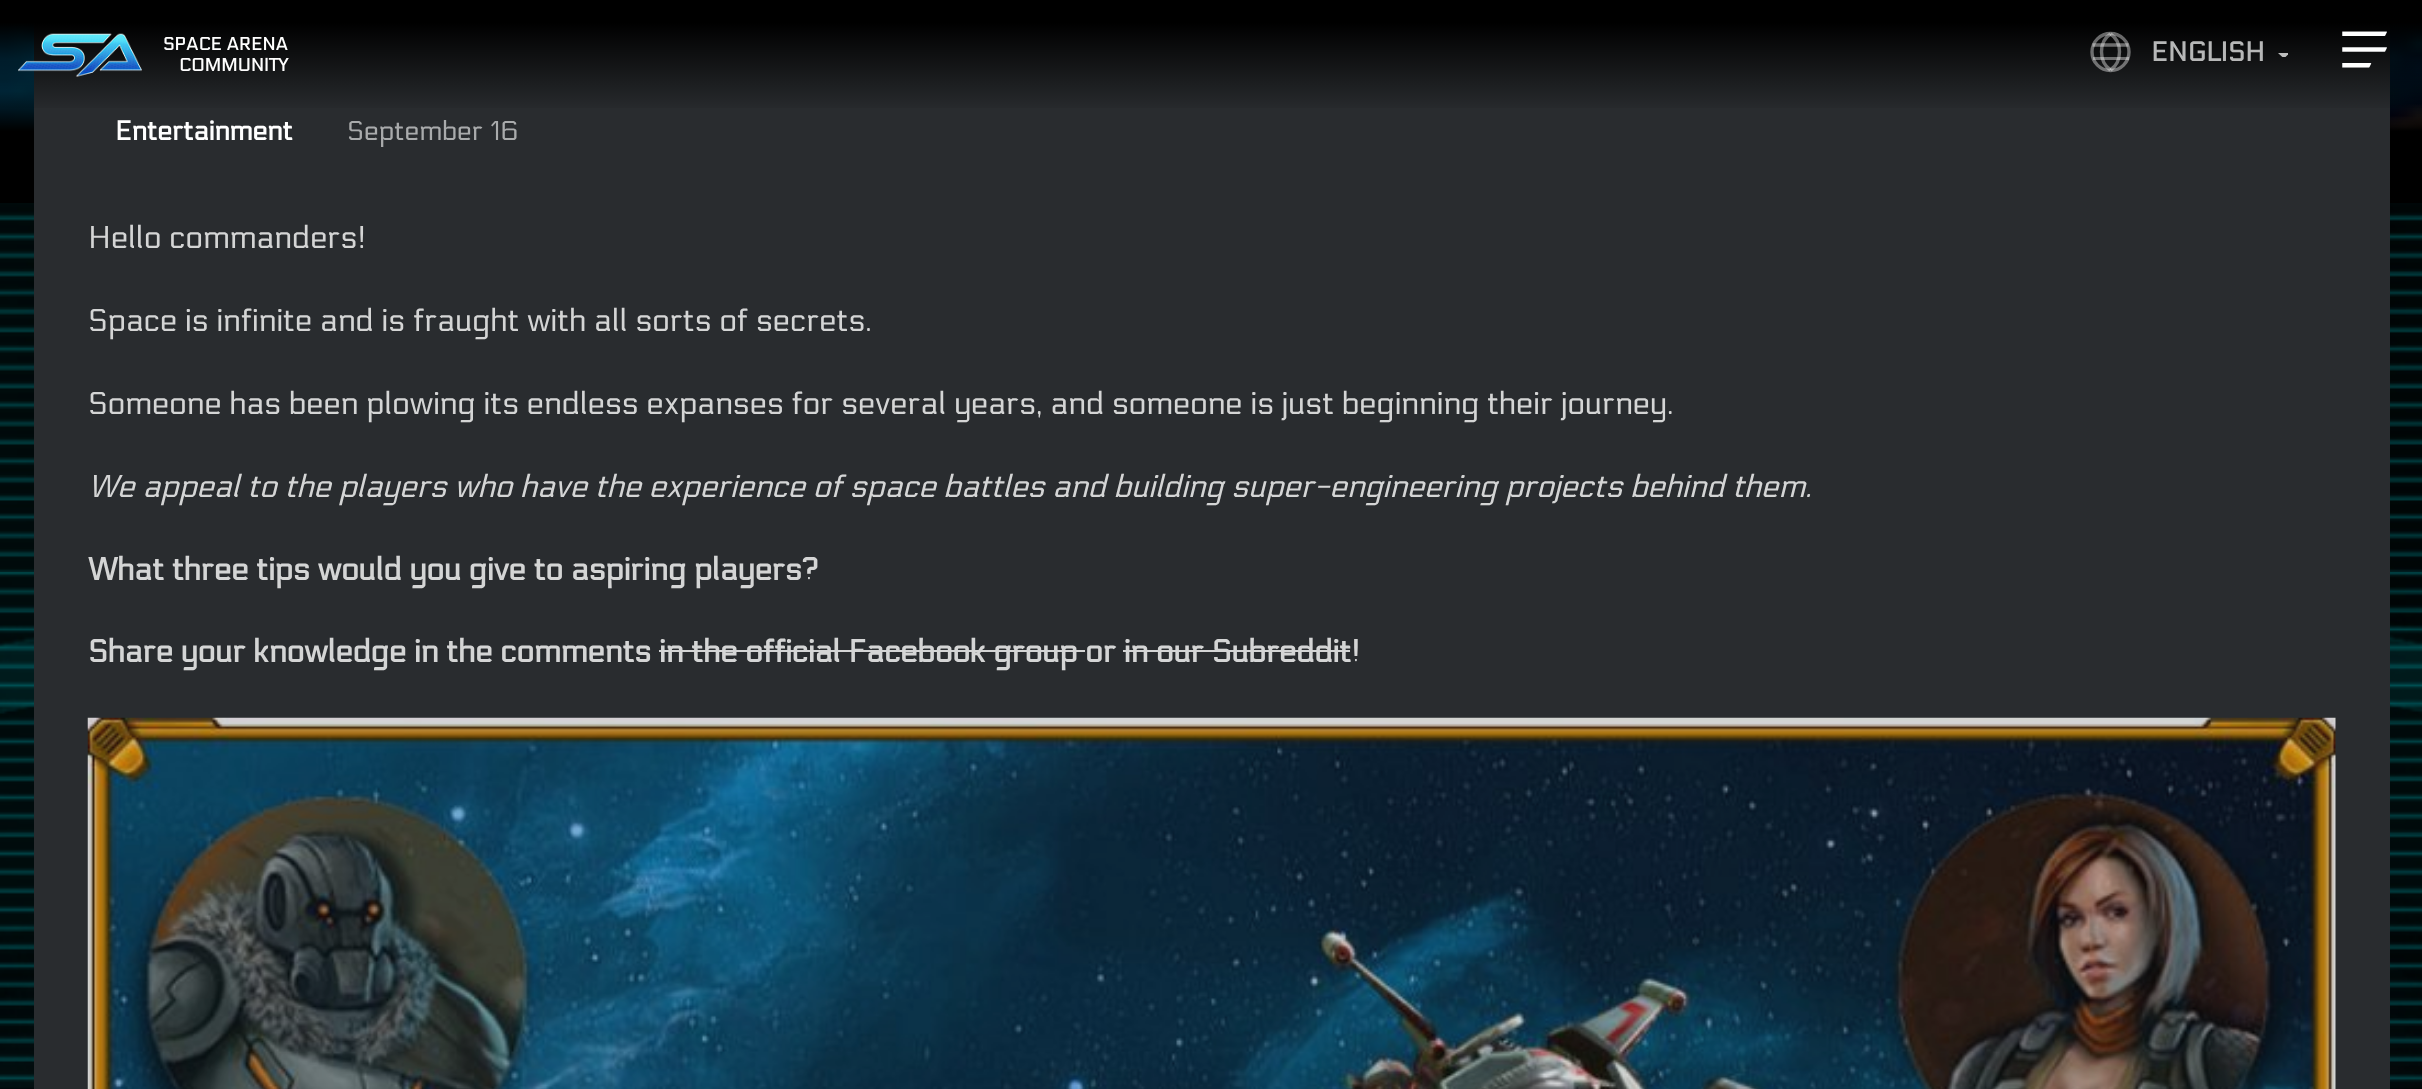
<svg xmlns="http://www.w3.org/2000/svg" width="2422" height="1089">
<style>
.a{font:bold 18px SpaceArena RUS;fill:#fff}
.b{font:bold 27px SpaceArena RUS;fill:#fff}
.c{font:27px SpaceArena RUS;fill:#a9abac}
.d{font:31.5px SpaceArena RUS;fill:#d4d5d5}
.e{font:italic 31.5px SpaceArena RUS;fill:#d4d5d5}
.f{font:bold 31.5px SpaceArena RUS;fill:#d4d5d5}
.g{font:bold 27px SpaceArena RUS;fill:#b6b7b7}
</style>
<defs>
<linearGradient id="g1" gradientUnits="userSpaceOnUse" x1="1212" y1="203" x2="1212" y2="59"><stop offset="0.5" stop-color="#000"/><stop offset="1" stop-color="#000" stop-opacity="0"/></linearGradient>
<linearGradient id="g2" gradientUnits="userSpaceOnUse" x1="1212" y1="0" x2="1212" y2="113"><stop offset="0.2" stop-color="#000"/><stop offset="1" stop-color="#000" stop-opacity="0"/></linearGradient>
<clipPath id="clip1"><path d="M2277 52h11v5H2277z"/></clipPath>
</defs>
<rect width="100%" height="100%" fill="#000106"/>
<image href="2.png" x="0" y="23" width="2422" height="108"/>
<path fill="url(#g1)" d="M0 61h2422v142H0z"/>
<image href="4.png" x="0" y="203" width="2422" height="886"/>
<path fill="#292c2f" d="M34 23h2356v1066H34z"/>
<path fill="url(#g2)" d="M0 0h2422v108H0z"/>
<image href="1.png" x="18" y="33" width="124" height="44"/>
<path fill="#d4d5d5" d="M659 650h426v2H659z"/>
<path fill="#d4d5d5" d="M1123 650h227v2H1123z"/>
<image href="3.png" x="87" y="717" width="2249" height="372"/>
<circle fill="none" stroke="#ffffff66" stroke-width="3.4" cx="2110.5" cy="52" r="18.5"/>
<path fill="none" stroke="#ffffff66" stroke-width="3.4" d="M2092.5 45h36"/>
<path fill="#ffffff66" d="M2093 57h36v3H2093z"/>
<path fill="none" stroke="#ffffff66" stroke-width="3.4" d="M2110.5 70c-12-8-12-28.5 0-36"/>
<path fill="none" stroke="#ffffff66" stroke-width="3.4" d="M2110.5 70c12-8 12-28.5 0-36"/>
<g clip-path="url(#clip1)">
<path fill="#bebebe" d="M2284 58.5l-6-5.5h11.5z"/>
</g>
<image href="5.png" x="2342" y="31" width="45" height="37"/>
<text class="a" x="163" y="50">SPACE ARENA</text>
<text class="a" x="179" y="71">COMMUNITY</text>
<text class="b" x="115" y="140">Entertainment</text>
<text class="c" x="347" y="140">September 16</text>
<text class="d" x="88" y="248">Hello commanders!</text>
<text class="d" x="88" y="331">Space is infinite and is fraught with all sorts of secrets.</text>
<text class="d" x="88" y="414">Someone has been plowing its endless expanses for several years, and someone is just beginning their journey.</text>
<text class="e" x="88" y="497">We appeal to the players who have the experience of space battles and building super-engineering projects behind them.</text>
<text class="f" x="88" y="580">What three tips would you give to aspiring players?</text>
<text class="f" x="88" y="662">Share your knowledge in the comments in the official Facebook group or in our Subreddit!</text>
<text class="g" x="2151" y="61">ENGLISH</text>
</svg>
